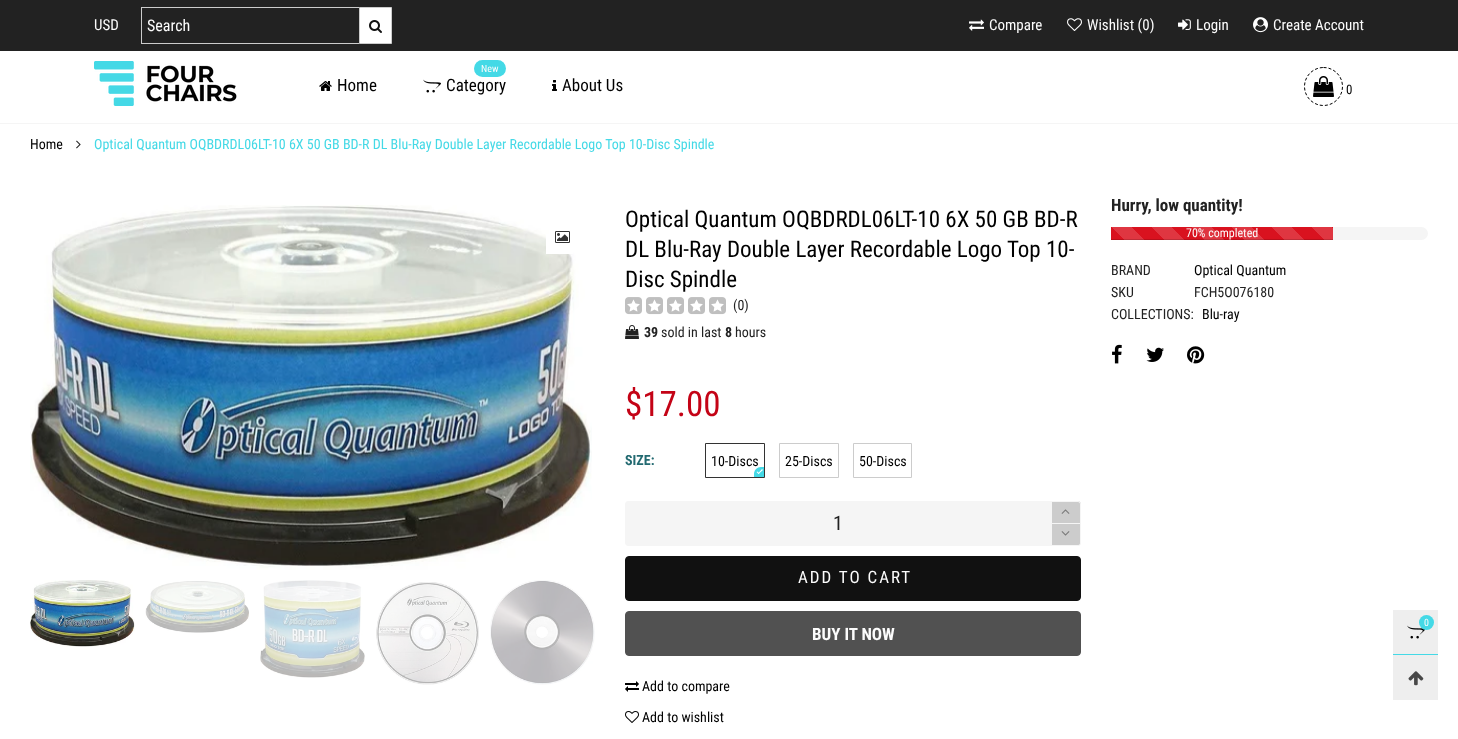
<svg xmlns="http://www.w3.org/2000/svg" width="1458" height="739">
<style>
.a{font:15px Roboto Condensed;fill:#fcfcfc}
.b{font:16px Roboto Condensed;fill:#fcfcfc}
.c{font:17px Roboto Condensed;fill:#000}
.d{font:10px Roboto Condensed;fill:#fcfcfc}
.e{font:13px Roboto Condensed;fill:#000}
.f{font:14px Roboto Condensed;fill:#000}
.g{font:14px Roboto Condensed;fill:#44d9e6}
.h{font:23px Roboto Condensed;fill:#000}
.i{font:14px Roboto Condensed;fill:#222}
.j{font:bold 14px Roboto Condensed;fill:#222}
.k{font:35px Roboto Condensed;fill:#c40316}
.l{font:bold 14px Roboto Condensed;fill:#236a71}
.m{font:20px Roboto Condensed;fill:#222}
.n{font:17px Roboto Condensed;letter-spacing:2px;fill:#fcfcfc}
.o{font:bold 17px Roboto Condensed;fill:#fcfcfc}
.p{font:bold 17px Roboto Condensed;fill:#222}
.q{font:12px Roboto Condensed;fill:#fcfcfc}
</style>
<defs>
<linearGradient id="g1" gradientUnits="userSpaceOnUse" x1="1111" y1="267" x2="1151" y2="227"><stop offset="0.25" stop-color="#df3641"/><stop offset="0.25" stop-color="#d9121f"/><stop offset="0.5" stop-color="#d9121f"/><stop offset="0.5" stop-color="#df3641"/><stop offset="0.75" stop-color="#df3641"/><stop offset="0.75" stop-color="#d9121f"/><stop offset="1" stop-color="#d9121f"/></linearGradient>
<linearGradient id="g2" gradientUnits="userSpaceOnUse" x1="1151" y1="267" x2="1191" y2="227"><stop offset="0.25" stop-color="#df3641"/><stop offset="0.25" stop-color="#d9121f"/><stop offset="0.5" stop-color="#d9121f"/><stop offset="0.5" stop-color="#df3641"/><stop offset="0.75" stop-color="#df3641"/><stop offset="0.75" stop-color="#d9121f"/><stop offset="1" stop-color="#d9121f"/></linearGradient>
<linearGradient id="g3" gradientUnits="userSpaceOnUse" x1="1191" y1="267" x2="1231" y2="227"><stop offset="0.25" stop-color="#df3641"/><stop offset="0.25" stop-color="#d9121f"/><stop offset="0.5" stop-color="#d9121f"/><stop offset="0.5" stop-color="#df3641"/><stop offset="0.75" stop-color="#df3641"/><stop offset="0.75" stop-color="#d9121f"/><stop offset="1" stop-color="#d9121f"/></linearGradient>
<linearGradient id="g4" gradientUnits="userSpaceOnUse" x1="1231" y1="267" x2="1271" y2="227"><stop offset="0.25" stop-color="#df3641"/><stop offset="0.25" stop-color="#d9121f"/><stop offset="0.5" stop-color="#d9121f"/><stop offset="0.5" stop-color="#df3641"/><stop offset="0.75" stop-color="#df3641"/><stop offset="0.75" stop-color="#d9121f"/><stop offset="1" stop-color="#d9121f"/></linearGradient>
<linearGradient id="g5" gradientUnits="userSpaceOnUse" x1="1271" y1="267" x2="1311" y2="227"><stop offset="0.25" stop-color="#df3641"/><stop offset="0.25" stop-color="#d9121f"/><stop offset="0.5" stop-color="#d9121f"/><stop offset="0.5" stop-color="#df3641"/><stop offset="0.75" stop-color="#df3641"/><stop offset="0.75" stop-color="#d9121f"/><stop offset="1" stop-color="#d9121f"/></linearGradient>
<linearGradient id="g6" gradientUnits="userSpaceOnUse" x1="1311" y1="267" x2="1351" y2="227"><stop offset="0.25" stop-color="#df3641"/><stop offset="0.25" stop-color="#d9121f"/><stop offset="0.5" stop-color="#d9121f"/><stop offset="0.5" stop-color="#df3641"/><stop offset="0.75" stop-color="#df3641"/><stop offset="0.75" stop-color="#d9121f"/><stop offset="1" stop-color="#d9121f"/></linearGradient>
</defs>
<rect width="100%" height="100%" fill="#fff"/>
<path fill="#222" d="M0 0h1458v51H0z"/>
<path fill="#ccc" d="M141 7h218v1H141z"/>
<path fill="#ccc" d="M141 43h218v1H141z"/>
<path fill="#ccc" d="M141 7h1v37H141z"/>
<path fill="#fff" stroke="#ccc" d="M359.5 7.5h32v36H359.5z"/>
<image href="1.png" x="369" y="20" width="13" height="13"/>
<image href="2.png" x="969" y="19" width="15" height="12"/>
<image href="3.png" x="1067" y="18" width="15" height="13"/>
<image href="4.png" x="1178" y="19" width="13" height="11"/>
<image href="5.png" x="1253" y="17" width="15" height="16"/>
<image href="6.png" x="94" y="61" width="143" height="45"/>
<image href="7.png" x="319" y="81" width="13" height="10"/>
<rect fill="#44d9e6" x="474" y="60" width="32" height="17" rx="8.5"/>
<image href="8.png" x="423" y="79" width="18" height="14"/>
<image href="9.png" x="552" y="80" width="5" height="11"/>
<path fill="none" stroke="#000" stroke-dasharray="3 2" d="M1323.5 67.5c10.5 0 19 8.5 19 19c0 10.5-8.5 19-19 19c-10.5 0-19-8.5-19-19c0-10.5 8.5-19 19-19z"/>
<image href="10.png" x="1313" y="76" width="21" height="21"/>
<path fill="#f5f5f5" d="M0 123h1458v1H0z"/>
<image href="11.png" x="76" y="140" width="5" height="9"/>
<image href="12.png" x="30" y="205" width="562" height="365"/>
<path fill="#fff" d="M546 234h27v20H546z"/>
<image href="13.png" x="555" y="231" width="15" height="12"/>
<image href="14.png" x="30" y="580" width="105" height="67"/>
<image href="15.png" x="145" y="581" width="104" height="52"/>
<image href="16.png" x="260" y="580" width="105" height="98"/>
<image href="17.png" x="376" y="582" width="103" height="103"/>
<image href="18.png" x="490" y="580" width="105" height="105"/>
<image href="19.png" x="625" y="297" width="17" height="18"/>
<image href="20.png" x="627" y="299" width="13" height="13"/>
<image href="19.png" x="646" y="297" width="17" height="18"/>
<image href="20.png" x="648" y="299" width="13" height="13"/>
<image href="19.png" x="667" y="297" width="17" height="18"/>
<image href="20.png" x="669" y="299" width="13" height="13"/>
<image href="19.png" x="688" y="297" width="17" height="18"/>
<image href="20.png" x="690" y="299" width="13" height="13"/>
<image href="19.png" x="709" y="297" width="17" height="18"/>
<image href="20.png" x="711" y="299" width="13" height="13"/>
<image href="21.png" x="625" y="325" width="14" height="14"/>
<path fill="none" stroke="#333" d="M705.5 443.5h59v34H705.5z"/>
<path fill="#44d9e6" d="M761 467h3v10h-10v-3c0-4 3-7 7-7z"/>
<path fill="#fff" d="M758 473.5l4-4.5l1 1l-4.5 4z"/>
<path fill="#fff" d="M756.5 472l1-.5l2 2l-1 .5z"/>
<path fill="none" stroke="#ccc" d="M779.5 443.5h59v34H779.5z"/>
<path fill="none" stroke="#ccc" d="M853.5 443.5h58v34H853.5z"/>
<path fill="#f5f5f5" d="M628 501h423v45h-423c-1.5 0-3-1.5-3-3v-39c0-1.5 1.5-3 3-3z"/>
<path fill="#ccc" d="M1051 501h27c1.5 0 3 1.5 3 3v19h-30z"/>
<path fill="#f5f5f5" fill-rule="evenodd" d="M1051 501h27c1.5 0 3 1.5 3 3v19h-30zm1 1h26c1 0 2 1 2 2v19h-28z"/>
<image href="22.png" x="1061" y="509" width="9" height="5"/>
<path fill="#ccc" stroke="#f5f5f5" d="M1051.5 523.5h29v19.5c0 1.5-1 2.5-2.5 2.5h-26.5z"/>
<image href="23.png" x="1061" y="531" width="9" height="5"/>
<rect fill="#111" stroke="#111" x="625.5" y="556.5" width="455" height="44" rx="3.5"/>
<rect fill="#515151" stroke="#515151" x="625.5" y="611.5" width="455" height="44" rx="3.5"/>
<image href="24.png" x="625" y="681" width="14" height="11"/>
<image href="25.png" x="625" y="711" width="14" height="12"/>
<rect fill="#f5f5f5" x="1111" y="227" width="317" height="13" rx="6.5"/>
<path fill="url(#g1)" d="M1111 227h40v13H1111z"/>
<path fill="url(#g2)" d="M1151 227h40v13H1151z"/>
<path fill="url(#g3)" d="M1191 227h40v13H1191z"/>
<path fill="url(#g4)" d="M1231 227h40v13H1231z"/>
<path fill="url(#g5)" d="M1271 227h40v13H1271z"/>
<path fill="url(#g6)" d="M1311 227h22v13H1311z"/>
<path fill="#00000026" d="M1111 239h222v1H1111z"/>
<image href="26.png" x="1112" y="344" width="10" height="20"/>
<image href="27.png" x="1146" y="347" width="18" height="15"/>
<image href="28.png" x="1187" y="346" width="18" height="18"/>
<path fill="#eee" d="M1393 610h45v90H1393z"/>
<path fill="#44d9e6" d="M1393 654h45v1H1393z"/>
<image href="29.png" x="1407" y="625" width="18" height="14"/>
<circle fill="#44d9e6" cx="1426.5" cy="622.5" r="7.5"/>
<image href="30.png" x="1408" y="671" width="16" height="15"/>
<text class="a" x="94" y="30">USD</text>
<text class="b" x="147" y="31">Search</text>
<text class="a" x="989" y="30">Compare</text>
<text class="a" x="1087" y="30">Wishlist (0)</text>
<text class="a" x="1196" y="30">Login</text>
<text class="a" x="1273" y="30">Create Account</text>
<text class="c" x="337" y="91">Home</text>
<text class="d" x="481" y="72">New</text>
<text class="c" x="446" y="91">Category</text>
<text class="c" x="562" y="91">About Us</text>
<text class="e" x="1346" y="94">0</text>
<text class="f" x="30" y="149">Home</text>
<text class="g" x="94" y="149">Optical Quantum OQBDRDL06LT-10 6X 50 GB BD-R DL Blu-Ray Double Layer Recordable Logo Top 10-Disc Spindle</text>
<text class="h" x="625" y="227">Optical Quantum OQBDRDL06LT-10 6X 50 GB BD-R</text>
<text class="h" x="625" y="257">DL Blu-Ray Double Layer Recordable Logo Top 10-</text>
<text class="h" x="625" y="287">Disc Spindle</text>
<text class="i" x="733" y="310">(0)</text>
<text class="j" x="644" y="337">39</text>
<text class="i" x="661" y="337">sold in last</text>
<text class="j" x="725" y="337">8</text>
<text class="i" x="735" y="337">hours</text>
<text class="k" x="625" y="416">$17.00</text>
<text class="l" x="625" y="465">SIZE:</text>
<text class="f" x="711" y="466">10-Discs</text>
<text class="f" x="785" y="466">25-Discs</text>
<text class="f" x="859" y="466">50-Discs</text>
<text class="m" x="833" y="530">1</text>
<text class="n" x="798" y="583">ADD TO CART</text>
<text class="o" x="812" y="640">BUY IT NOW</text>
<text class="f" x="642" y="691">Add to compare</text>
<text class="f" x="642" y="722">Add to wishlist</text>
<text class="p" x="1111" y="211">Hurry, low quantity!</text>
<text class="q" x="1186" y="237">70% completed</text>
<text class="i" x="1111" y="275">BRAND</text>
<text class="f" x="1194" y="275">Optical Quantum</text>
<text class="i" x="1111" y="297">SKU</text>
<text class="i" x="1194" y="297">FCH5O076180</text>
<text class="i" x="1111" y="319">COLLECTIONS:</text>
<text class="f" x="1202" y="319">Blu-ray</text>
<text class="d" x="1424" y="626">0</text>
</svg>
